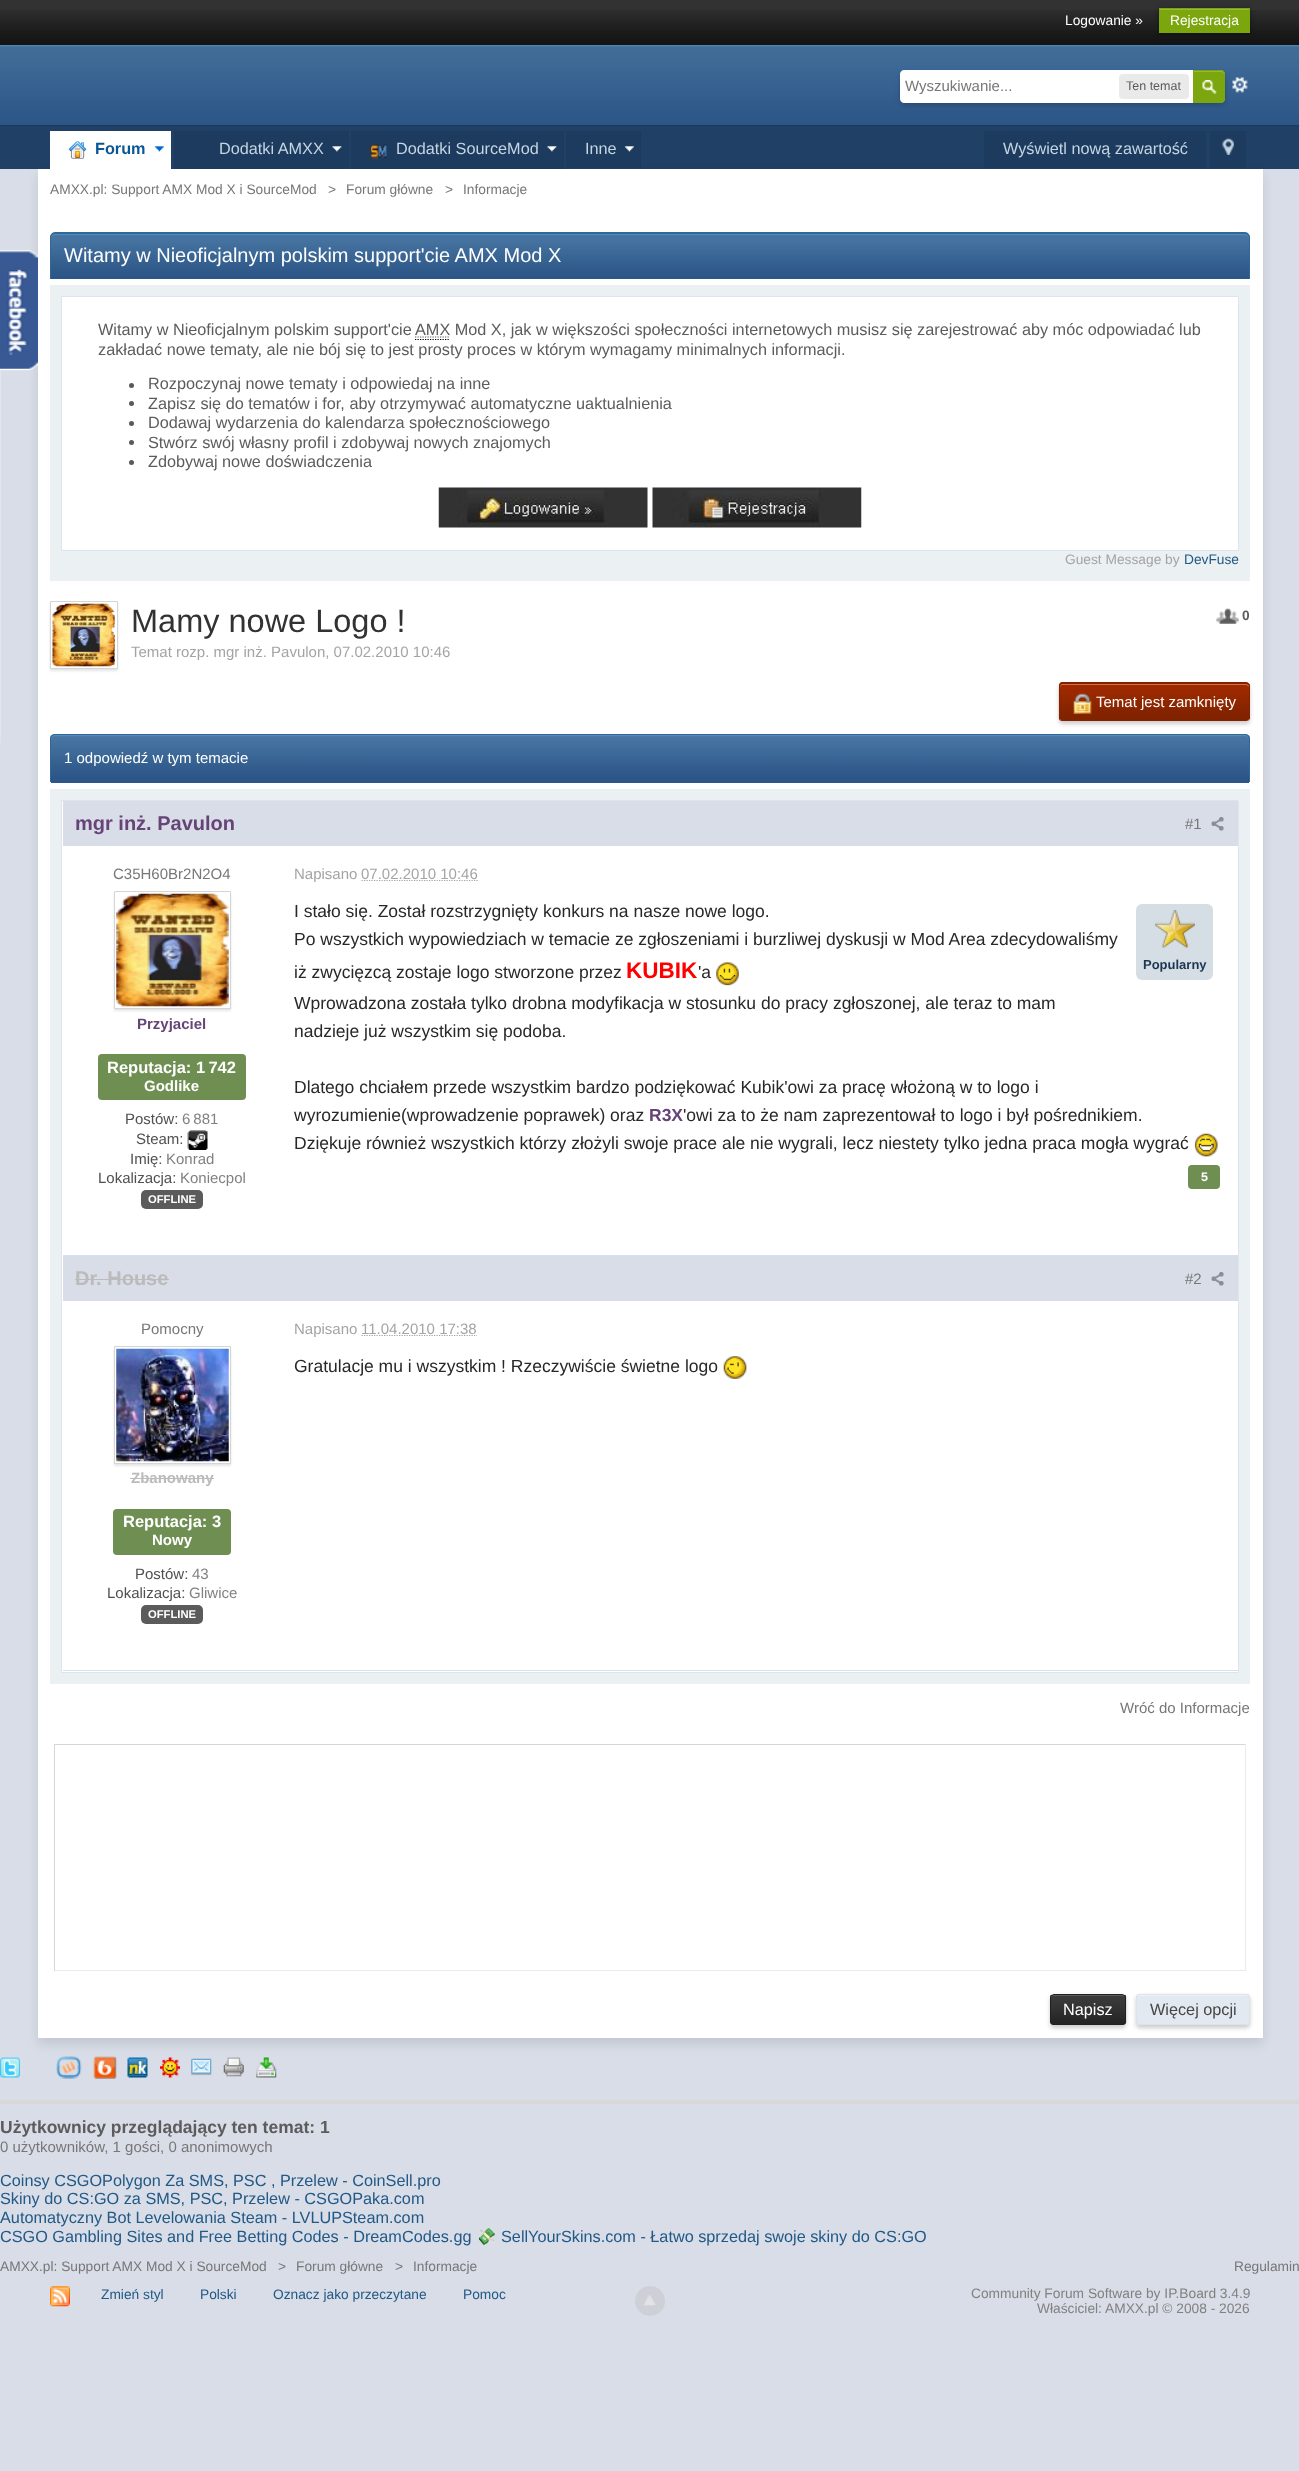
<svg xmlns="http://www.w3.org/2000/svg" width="1299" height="2471">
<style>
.a{font:13.75px Liberation Sans;fill:#fff}
.b{font:15px Liberation Sans;fill:#777}
.c{font:12.5px Liberation Sans;fill:#5c5c5c}
.d{font:bold 16.25px Liberation Sans;fill:#0b5794}
.e{font:16.25px Liberation Sans;fill:#c5d5e2}
.f{font:13.75px Liberation Sans;fill:#777}
.g{font:20px Liberation Sans;fill:#fff}
.h{font:16.25px Liberation Sans;fill:#5c5c5c}
.i{font:13.75px Liberation Sans;fill:#a4a4a4}
.j{font:13.75px Liberation Sans;fill:#225985}
.k{font:32.5px Liberation Sans;fill:#323232}
.l{font:15px Liberation Sans;fill:#a4a4a4}
.m{font:bold 13.75px Liberation Sans;fill:#5c5c5c}
.n{font:15px Liberation Sans;fill:#fff}
.o{font:bold 20px Liberation Sans;fill:#647}
.p{font:bold 15px Liberation Sans;fill:#647}
.q{font:bold 16.5px Liberation Sans;fill:#fff}
.r{font:bold 15px Liberation Sans;fill:#fff}
.s{font:15px Liberation Sans;fill:#505050}
.t{font:15px Liberation Sans;fill:#818181}
.u{font:bold 11.25px Liberation Sans;fill:#fff}
.v{font:17.5px Liberation Sans;fill:#282828}
.w{font:bold 22.5px Liberation Sans;fill:#f00}
.x{font:bold 17.5px Liberation Sans;fill:#647}
.y{font:bold 13px Liberation Sans;fill:#1d3652}
.z{font:bold 12.5px Liberation Sans;fill:#fff}
.a1{font:bold 20px Liberation Sans;fill:#bbb}
.b1{font:bold 15px Liberation Sans;fill:#bbb}
.c1{font:16.25px Liberation Sans;fill:#fff}
.d1{font:16.25px Liberation Sans;fill:#464646}
.e1{font:bold 17.5px Liberation Sans;fill:#5c5c5c}
.f1{font:16.25px Liberation Sans;fill:#225985}
.g1{font:16.25px Noto Color Emoji;fill:#225985}
.h1{font:13.75px Liberation Sans;fill:#818181}
</style>
<rect width="100%" height="100%" fill="#d8dde8"/>
<path fill="#323232" d="M0 0h1299v10H0z"/>
<image href="1.png" x="0" y="10" width="1299" height="35"/>
<path fill="#00000066" filter="blur(2.5px)" d="M1159 9h91v25H1159z"/>
<path fill="#7ba60d" d="M1159 8h91v25H1159z"/>
<path fill="#95b83d" d="M1160 9h89v1H1160z"/>
<image href="2.png" x="0" y="45" width="1299" height="80"/>
<path fill="#1b3759" d="M0 125h1299v1H0z"/>
<image href="4.png" x="1232" y="77" width="16" height="16"/>
<rect fill="#00000033" filter="blur(2.5px)" x="900" y="73" width="325" height="32" rx="5"/>
<path fill="#fff" d="M904 70h316c3 0 5 2 5 5v23c0 3-2 5-5 5h-316c-2 0-4-2-4-4v-25c0-2 2-4 4-4z"/>
<rect fill="#eaeaea" x="1119" y="74" width="70" height="25" rx="4"/>
<path fill="#7ba60d" d="M1193 70h28c2 0 4 2 4 4v25c0 2-2 4-4 4h-28z"/>
<image href="3.png" x="1202" y="80" width="15" height="14"/>
<path fill="#95b83d" d="M1194 72h27c2 0 3 2 3 3v-1.5c0-1.5-1-2.5-2.5-2.5h-27.5z"/>
<path fill="none" stroke="#7ba60d" d="M1193.5 70.5h27.5c2 0 3.5 1.5 3.5 3.5v25c0 2-1.5 3.5-3.5 3.5h-27.5z"/>
<path fill="#204066" d="M0 126h1299v43H0z"/>
<path fill="#0000001a" filter="blur(5.5px)" d="M38 175h1225v1869H38z"/>
<path fill="#fff" d="M50 131h121v38H50z"/>
<image href="5.png" x="154" y="146" width="10" height="6"/>
<image href="6.png" x="68" y="141" width="19" height="18"/>
<path fill="#1c3b5f" d="M174 131h175v38H174z"/>
<image href="7.png" x="332" y="146" width="10" height="6"/>
<path fill="#1c3b5f" d="M351 131h213v38H351z"/>
<image href="7.png" x="547" y="146" width="10" height="6"/>
<image href="8.png" x="370" y="144" width="17" height="15"/>
<path fill="#1c3b5f" d="M566 131h75v37H566z"/>
<image href="9.png" x="624" y="146" width="10" height="6"/>
<path fill="#1c3b5f" d="M984 131h222v37H984z"/>
<path fill="#1c3b5f" d="M1210 131h36v37H1210z"/>
<image href="10.png" x="1222" y="138" width="12" height="17"/>
<path fill="#fff" d="M38 169h1225v1869H38z"/>
<path fill="#2c5687" d="M55 234h1190c2 0 4 2 4 4v41h-1198v-41c0-2 2-4 4-4z"/>
<image href="11.png" x="50" y="233" width="1200" height="45"/>
<path fill="#528cbc" d="M55 235h1190c2 0 4 2 4 4c0-3-1-5-4-5h-1190c-3 0-4 2-4 5c0-2 2-4 4-4z"/>
<path fill="#316897" fill-rule="evenodd" d="M55 232h1190c3 0 5 3 5 6v41h-1200v-41c0-3 2-6 5-6zm0 2h1190c2 0 4 1 4 4v41h-1198v-41c0-3 2-4 4-4z"/>
<path fill="#ebf0f3" d="M50 285h1200v296H50z"/>
<path fill="#fff" stroke="#dbe4ef" d="M61.5 296.5h1177v254H61.5z"/>
<path fill="none" stroke="#000" stroke-width="1.2" stroke-dasharray="1.25 1.25" d="M415 339.5h35"/>
<path fill="none" stroke="#5a5a5a" stroke-width="1.2" stroke-dasharray="1.25 1.25" d="M415 337h35"/>
<circle fill="#5a5a5a" cx="131.5" cy="385.5" r="2.5"/>
<circle fill="#5a5a5a" cx="131.5" cy="403.5" r="2.5"/>
<circle fill="#5a5a5a" cx="131.5" cy="423.5" r="2.5"/>
<circle fill="#5a5a5a" cx="131.5" cy="442.5" r="2.5"/>
<circle fill="#5a5a5a" cx="131.5" cy="462.5" r="2.5"/>
<image href="12.png" x="438" y="487" width="210" height="41"/>
<image href="13.png" x="652" y="487" width="210" height="41"/>
<path fill="#0000001a" filter="blur(1px)" d="M50 604h68v67H50z"/>
<path fill="#fff" d="M51 603h66v65H51z"/>
<path fill="none" stroke="#d5d5d5" d="M50.5 601.5h67v67H50.5z"/>
<image href="14.png" x="52" y="603" width="63" height="64"/>
<image href="15.png" x="1216" y="608" width="23" height="16"/>
<rect fill="#00000033" filter="blur(2px)" x="1059" y="685" width="191" height="39" rx="4"/>
<path fill="#812200" d="M1062 684h184c2 0 3 1 3 2v32c0 2-1 3-3 3h-184c-1 0-2-1-2-3v-32c0-1 1-2 2-2z"/>
<image href="16.png" x="1058" y="683" width="192" height="36"/>
<path fill="#db6e46" d="M1062 685h184l2 1l1 1c0-2-1-3-3-3h-184c-2 0-2 2-2 4c0-2 1-3 2-3z"/>
<path fill="#812200" fill-rule="evenodd" d="M1062 682h184c2 0 4 2 4 4v32c0 2-2 3-4 3h-184c-2 0-3-1-3-3v-32c0-2 1-4 3-4zm0 2h184c2 0 3 1 3 2v32c0 2-1 3-3 3h-184c-1 0-2-1-2-3v-32c0-1 1-2 2-2z"/>
<image href="17.png" x="1073" y="693" width="19" height="21"/>
<path fill="#2c5687" d="M55 735h1190c2 0 4 2 4 4v44h-1198v-44c0-2 2-4 4-4z"/>
<image href="18.png" x="50" y="735" width="1200" height="44"/>
<path fill="#528cbc" d="M55 736h1190c2 0 4 2 4 4c0-3-1-5-4-5h-1190c-3 0-4 2-4 5c0-2 2-4 4-4z"/>
<path fill="#316897" fill-rule="evenodd" d="M55 734h1190c3 0 5 2 5 5v43h-1200v-43c0-3 2-5 5-5zm0 1h1190c2 0 4 2 4 4v43h-1198v-43c0-2 2-4 4-4z"/>
<path fill="#ebf0f3" d="M50 789h1200v895H50z"/>
<path fill="#fff" stroke="#dbe4ef" d="M61.5 800.5h1177v872H61.5z"/>
<path fill="#d6e2eb" d="M63 1255h1175v1H63z"/>
<path fill="#d8dde8" d="M63 801h1175v45H63z"/>
<image href="19.png" x="1211" y="817" width="13" height="14"/>
<path fill="#0000001a" filter="blur(1px)" d="M114 894h117v117H114z"/>
<path fill="#fff" d="M115 893h115v115H115z"/>
<path fill="none" stroke="#d5d5d5" d="M114.5 891.5h116v117H114.5z"/>
<image href="20.png" x="116" y="893" width="113" height="114"/>
<rect fill="#6f8f52" x="98" y="1054" width="148" height="46" rx="4"/>
<image href="21.png" x="187" y="1130" width="21" height="20"/>
<rect fill="#5b5b5b" x="141" y="1190" width="62" height="19" rx="5"/>
<path fill="none" stroke="#a4a4a4" stroke-width="1.2" stroke-dasharray="1.25 1.25" d="M361.5 880.5h116.5"/>
<image href="22.png" x="716" y="962" width="23" height="24"/>
<image href="23.png" x="1194" y="1133" width="24" height="24"/>
<rect fill="#d5dee5" x="1136" y="904" width="77" height="76" rx="6"/>
<image href="24.png" x="1155" y="910" width="40" height="38"/>
<rect fill="#6f8f52" x="1188" y="1165" width="32" height="24" rx="4"/>
<path fill="#d6e2eb" d="M63 1670h1175v1H63z"/>
<path fill="#d8dde8" d="M63 1256h1175v45H63z"/>
<path fill="#bbb" d="M75 1279h94v1H75z"/>
<image href="19.png" x="1211" y="1272" width="13" height="14"/>
<path fill="#0000001a" filter="blur(1px)" d="M114 1349h117v117H114z"/>
<path fill="#fff" d="M115 1348h115v115H115z"/>
<path fill="none" stroke="#d5d5d5" d="M114.5 1346.5h116v117H114.5z"/>
<image href="25.png" x="116" y="1348" width="113" height="114"/>
<path fill="#bbb" d="M130 1478h84v1H130z"/>
<rect fill="#6f8f52" x="113" y="1509" width="118" height="46" rx="4"/>
<rect fill="#5b5b5b" x="141" y="1605" width="62" height="19" rx="5"/>
<path fill="none" stroke="#a4a4a4" stroke-width="1.2" stroke-dasharray="1.25 1.25" d="M361.5 1335.5h115.5"/>
<image href="26.png" x="723" y="1356" width="24" height="23"/>
<path fill="#d6d6d6" d="M54 1744h1192v1H54z"/>
<path fill="#ebebeb" d="M1245 1744h1v227H1245z"/>
<path fill="#ebebeb" d="M54 1970h1192v1H54z"/>
<path fill="#d6d6d6" d="M54 1744h1v227H54z"/>
<rect fill="#00000033" filter="blur(2px)" x="1050" y="1996" width="76" height="32" rx="4"/>
<image href="27.png" x="1050" y="1995" width="77" height="30"/>
<path fill="#5c5c5c" d="M1054 1996h68c2 0 3 1 3 3c0-7-8-4-14-4h-46c-6 0-14-3-14 4c0-2 1-3 3-3z"/>
<rect fill="none" stroke="#212121" x="1050.5" y="1994.5" width="75" height="30" rx="3.5"/>
<rect fill="#00000033" filter="blur(2px)" x="1136" y="1996" width="114" height="32" rx="4"/>
<rect fill="#e2e9f0" x="1136" y="1994" width="114" height="31" rx="4"/>
<path fill="#eff3f8" d="M1140 1996h106c2 0 3 1 3 3v-1c0-2-1-3-3-3h-106c-1 0-2 1-2 3v1c0-2 1-3 2-3z"/>
<rect fill="none" stroke="#dae2ea" x="1136.5" y="1994.5" width="113" height="30" rx="3.5"/>
<image href="28.png" x="0" y="250" width="38" height="494"/>
<image href="29.png" x="0" y="2057" width="20" height="21"/>
<image href="30.png" x="56" y="2056" width="26" height="23"/>
<image href="31.png" x="93" y="2056" width="24" height="23"/>
<image href="32.png" x="127" y="2057" width="21" height="21"/>
<image href="33.png" x="160" y="2057" width="20" height="21"/>
<image href="34.png" x="191" y="2058" width="21" height="18"/>
<image href="35.png" x="223" y="2057" width="21" height="20"/>
<image href="36.png" x="256" y="2057" width="21" height="21"/>
<path fill="#d8d8d8" d="M0 2100h1299v4H0z"/>
<image href="37.png" x="50" y="2286" width="20" height="21"/>
<circle fill="#cdd0d7" cx="650" cy="2301" r="15"/>
<image href="38.png" x="643" y="2295" width="13" height="11"/>
<text class="a" x="1065" y="25">Logowanie »</text>
<text class="a" x="1170" y="25">Rejestracja</text>
<text class="b" x="905" y="91">Wyszukiwanie...</text>
<text class="c" x="1126" y="90">Ten temat</text>
<text class="d" x="95" y="154">Forum</text>
<text class="e" x="219" y="154">Dodatki AMXX</text>
<text class="e" x="396" y="154">Dodatki SourceMod</text>
<text class="e" x="585" y="154">Inne</text>
<text class="e" x="1003" y="154">Wyświetl nową zawartość</text>
<text class="f" x="50" y="194">AMXX.pl: Support AMX Mod X i SourceMod</text>
<text class="f" x="328" y="194">&gt;</text>
<text class="f" x="346" y="194">Forum główne</text>
<text class="f" x="445" y="194">&gt;</text>
<text class="f" x="463" y="194">Informacje</text>
<text class="g" x="64" y="262">Witamy w Nieoficjalnym polskim support'cie AMX Mod X</text>
<text class="h" x="98" y="335">Witamy w Nieoficjalnym polskim support'cie</text>
<text class="h" x="415" y="335">AMX Mod X, jak w większości społeczności internetowych musisz się zarejestrować aby móc odpowiadać lub</text>
<text class="h" x="98" y="355">zakładać nowe tematy, ale nie bój się to jest prosty proces w którym wymagamy minimalnych informacji.</text>
<text class="h" x="148" y="389">Rozpoczynaj nowe tematy i odpowiedaj na inne</text>
<text class="h" x="148" y="409">Zapisz się do tematów i for, aby otrzymywać automatyczne uaktualnienia</text>
<text class="h" x="148" y="428">Dodawaj wydarzenia do kalendarza społecznościowego</text>
<text class="h" x="148" y="448">Stwórz swój własny profil i zdobywaj nowych znajomych</text>
<text class="h" x="148" y="467">Zdobywaj nowe doświadczenia</text>
<text class="i" x="1065" y="564">Guest Message by</text>
<text class="j" x="1184" y="564">DevFuse</text>
<text class="k" x="131" y="632">Mamy nowe Logo !</text>
<text class="l" x="131" y="657">Temat rozp. mgr inż. Pavulon, 07.02.2010 10:46</text>
<text class="m" x="1242" y="620">0</text>
<text class="n" x="1096" y="707">Temat jest zamknięty</text>
<text class="n" x="64" y="763">1 odpowiedź w tym temacie</text>
<text class="o" x="75" y="830">mgr inż. Pavulon</text>
<text class="b" x="1185" y="829">#1</text>
<text class="b" x="113" y="879">C35H60Br2N2O4</text>
<text class="p" x="137" y="1029">Przyjaciel</text>
<text class="q" x="107" y="1073">Reputacja: 1 742</text>
<text class="r" x="144" y="1091">Godlike</text>
<text class="s" x="125" y="1124">Postów:</text>
<text class="t" x="182" y="1124">6 881</text>
<text class="s" x="136" y="1144">Steam:</text>
<text class="s" x="130" y="1164">Imię:</text>
<text class="t" x="166" y="1164">Konrad</text>
<text class="s" x="98" y="1183">Lokalizacja:</text>
<text class="t" x="180" y="1183">Koniecpol</text>
<text class="u" x="148" y="1203">OFFLINE</text>
<text class="l" x="294" y="879">Napisano</text>
<text class="l" x="361" y="879">07.02.2010 10:46</text>
<text class="v" x="294" y="917">I stało się. Został rozstrzygnięty konkurs na nasze nowe logo.</text>
<text class="v" x="294" y="945">Po wszystkich wypowiedziach w temacie ze zgłoszeniami i burzliwej dyskusji w Mod Area zdecydowaliśmy</text>
<text class="v" x="294" y="978">iż zwycięzcą zostaje logo stworzone przez</text>
<text class="w" x="626" y="978">KUBIK</text>
<text class="v" x="698" y="978">'a</text>
<text class="v" x="294" y="1009">Wprowadzona została tylko drobna modyfikacja w stosunku do pracy zgłoszonej, ale teraz to mam</text>
<text class="v" x="294" y="1037">nadzieje już wszystkim się podoba.</text>
<text class="v" x="294" y="1093">Dlatego chciałem przede wszystkim bardzo podziękować Kubik'owi za pracę włożoną w to logo i</text>
<text class="v" x="294" y="1121">wyrozumienie(wprowadzenie poprawek) oraz</text>
<text class="x" x="649" y="1121">R3X</text>
<text class="v" x="683" y="1121">'owi za to że nam zaprezentował to logo i był pośrednikiem.</text>
<text class="v" x="294" y="1149">Dziękuje również wszystkich którzy złożyli swoje prace ale nie wygrali, lecz niestety tylko jedna praca mogła wygrać</text>
<text class="y" x="1143" y="969">Popularny</text>
<text class="z" x="1201" y="1181">5</text>
<text class="a1" x="75" y="1285">Dr. House</text>
<text class="b" x="1185" y="1284">#2</text>
<text class="b" x="141" y="1334">Pomocny</text>
<text class="b1" x="131" y="1483">Zbanowany</text>
<text class="q" x="123" y="1527">Reputacja: 3</text>
<text class="r" x="152" y="1545">Nowy</text>
<text class="s" x="135" y="1579">Postów:</text>
<text class="t" x="192" y="1579">43</text>
<text class="s" x="107" y="1598">Lokalizacja:</text>
<text class="t" x="189" y="1598">Gliwice</text>
<text class="u" x="148" y="1618">OFFLINE</text>
<text class="l" x="294" y="1334">Napisano</text>
<text class="l" x="361" y="1334">11.04.2010 17:38</text>
<text class="v" x="294" y="1372">Gratulacje mu i wszystkim ! Rzeczywiście świetne logo</text>
<text class="b" x="1120" y="1713">Wróć do Informacje</text>
<text class="c1" x="1063" y="2015">Napisz</text>
<text class="d1" x="1150" y="2015">Więcej opcji</text>
<text class="e1" x="0" y="2133">Użytkownicy przeglądający ten temat: 1</text>
<text class="b" x="0" y="2152">0 użytkowników, 1 gości, 0 anonimowych</text>
<text class="f1" x="0" y="2186">Coinsy CSGOPolygon Za SMS, PSC , Przelew - CoinSell.pro</text>
<text class="f1" x="0" y="2204">Skiny do CS:GO za SMS, PSC, Przelew - CSGOPaka.com</text>
<text class="f1" x="0" y="2223">Automatyczny Bot Levelowania Steam - LVLUPSteam.com</text>
<text class="f1" x="0" y="2242">CSGO Gambling Sites and Free Betting Codes - DreamCodes.gg</text>
<text class="g1" x="476" y="2242">💸</text>
<text class="f1" x="501" y="2242">SellYourSkins.com - Łatwo sprzedaj swoje skiny do CS:GO</text>
<text class="f" x="0" y="2271">AMXX.pl: Support AMX Mod X i SourceMod</text>
<text class="f" x="278" y="2271">&gt;</text>
<text class="f" x="296" y="2271">Forum główne</text>
<text class="f" x="395" y="2271">&gt;</text>
<text class="f" x="413" y="2271">Informacje</text>
<text class="f" x="1234" y="2271">Regulamin</text>
<text class="j" x="101" y="2299">Zmień styl</text>
<text class="j" x="200" y="2299">Polski</text>
<text class="j" x="273" y="2299">Oznacz jako przeczytane</text>
<text class="j" x="463" y="2299">Pomoc</text>
<text class="h1" x="971" y="2298">Community Forum Software by IP.Board 3.4.9</text>
<text class="h1" x="1037" y="2313">Właściciel:</text>
<text class="h1" x="1105" y="2313">AMXX.pl © 2008 - 2026</text>
</svg>
